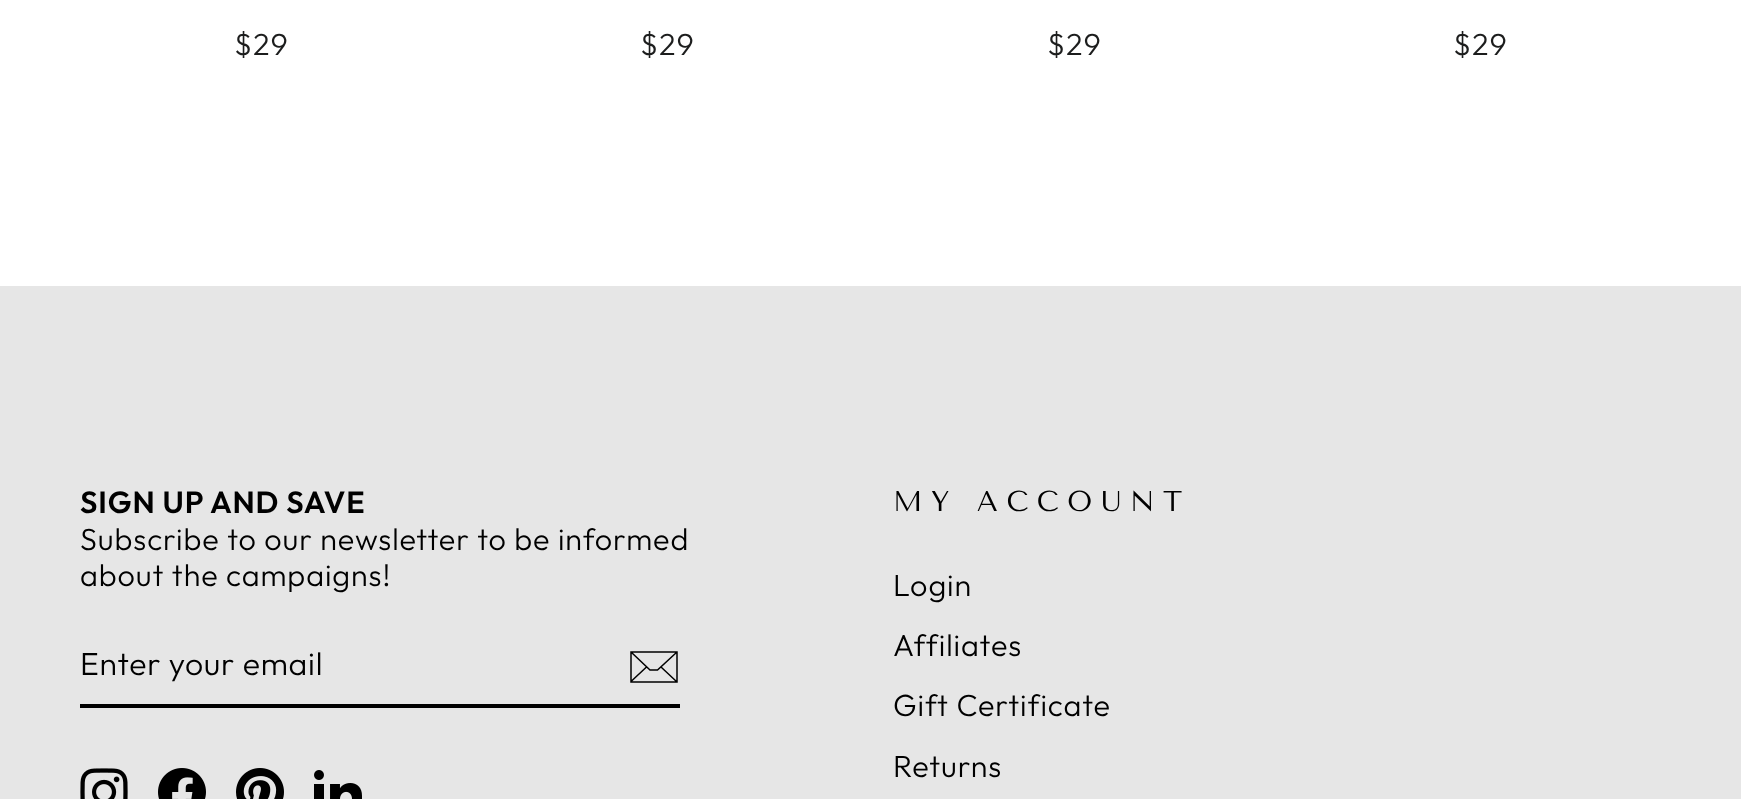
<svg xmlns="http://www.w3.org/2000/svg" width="1741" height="799">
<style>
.a{font:300 30.6px Outfit;letter-spacing:0.9px;fill:#1c1d1d}
.b{font:600 30.6px Outfit;letter-spacing:0.9px;fill:#000}
.c{font:300 30.6px Outfit;letter-spacing:0.9px;fill:#000}
.d{font:300 32px Outfit;letter-spacing:0.75px;fill:#000}
.e{font:28.75px Tenor Sans;letter-spacing:8.6px;fill:#000}
</style>
<rect width="100%" height="100%" fill="#fff"/>
<path fill="#e6e6e6" d="M0 286h1741v513H0z"/>
<path fill="#000" d="M80 704h600v4H80z"/>
<path fill="none" stroke="#000" stroke-width="1.5" d="M677 682h-46v-30h46zm-46-30l19 18h7.5l19.5-18m-30.5 15l-15.5 14.5m46 .5l-16-15"/>
<image href="1.png" x="80" y="768" width="48" height="31"/>
<image href="2.png" x="158" y="768" width="48" height="31"/>
<image href="3.png" x="236" y="768" width="48" height="31"/>
<image href="4.png" x="314" y="770" width="48" height="29"/>
<text class="a" x="234" y="55">$29</text>
<text class="a" x="640" y="55">$29</text>
<text class="a" x="1047" y="55">$29</text>
<text class="a" x="1453" y="55">$29</text>
<text class="b" x="80" y="513">SIGN UP AND SAVE</text>
<text class="c" x="80" y="550">Subscribe to our newsletter to be informed</text>
<text class="c" x="80" y="586">about the campaigns!</text>
<text class="d" x="80" y="675">Enter your email</text>
<text class="e" x="893" y="511">MY ACCOUNT</text>
<text class="c" x="893" y="596">Login</text>
<text class="c" x="893" y="656">Affiliates</text>
<text class="c" x="893" y="716">Gift Certificate</text>
<text class="c" x="893" y="777">Returns</text>
</svg>
